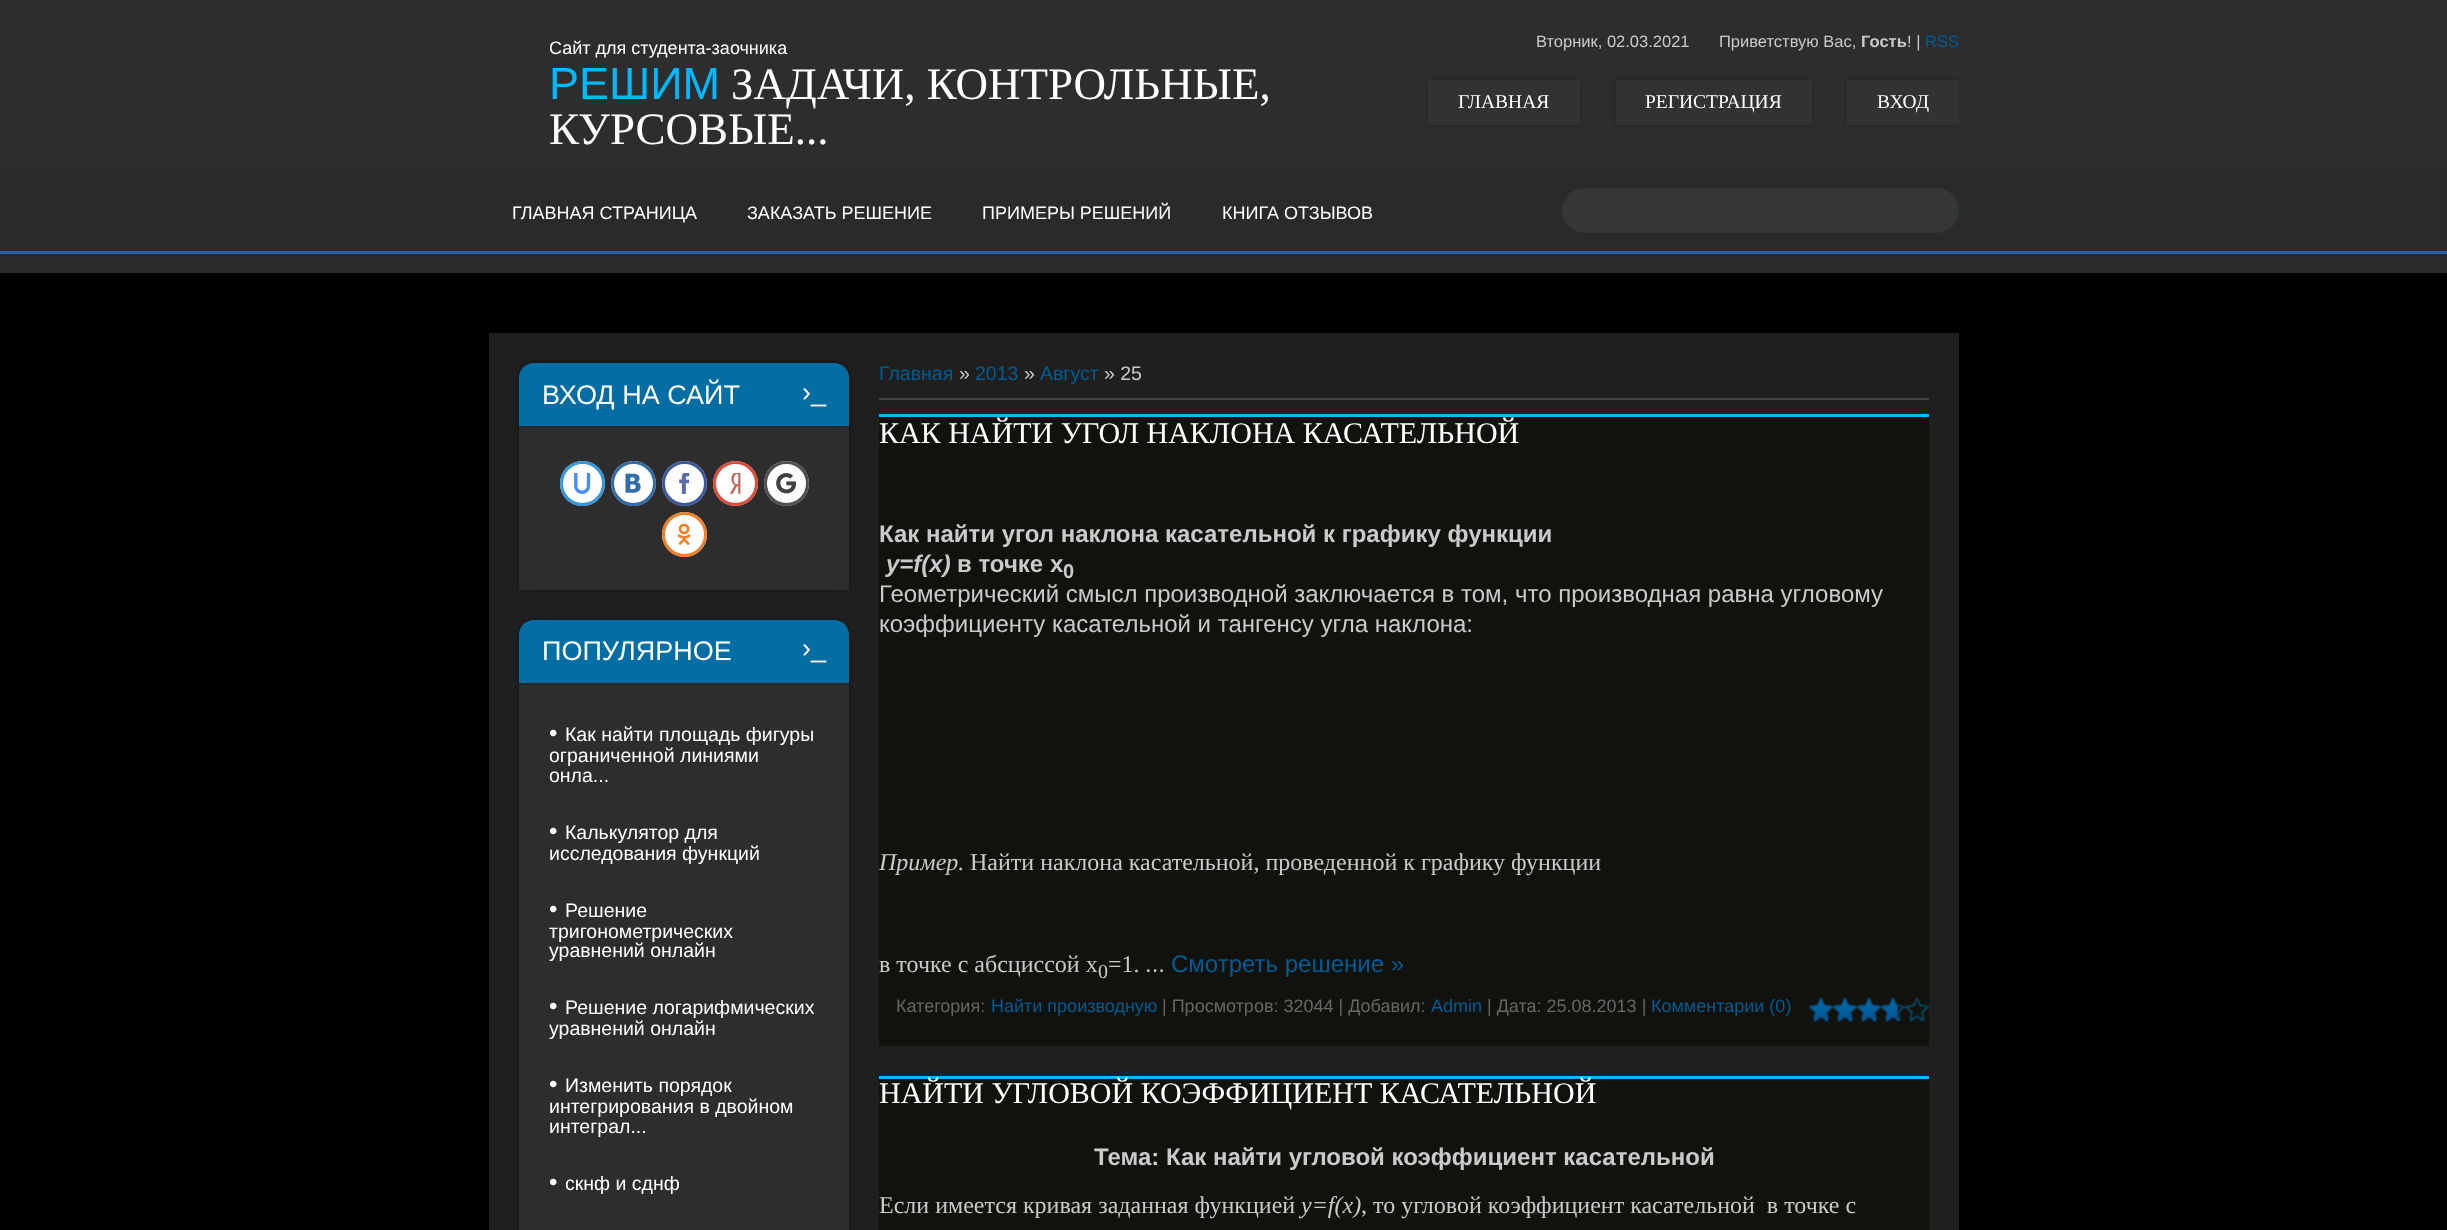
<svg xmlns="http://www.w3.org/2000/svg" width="2447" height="1230">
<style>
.a{font:18px Liberation Sans;fill:#fff}
.b{font:45px Liberation Sans;fill:#00baff}
.c{font:45px Liberation Serif;fill:#fff}
.d{font:16.5px Liberation Sans;fill:#cacaca}
.e{font:bold 16.5px Liberation Sans;fill:#cacaca}
.f{font:16.5px Liberation Sans;fill:#005c96}
.g{font:19.5px Liberation Serif;fill:#fff}
.h{font:27px Liberation Sans;fill:#fff}
.i{font:24px Liberation Sans;fill:#fff}
.j{font:19.5px Liberation Sans;fill:#fff}
.k{font:19.5px Liberation Sans;fill:#005c96}
.l{font:19.5px Liberation Sans;fill:#cacaca}
.m{font:30px Liberation Serif;fill:#fff}
.n{font:bold 24px Liberation Sans;fill:#cacaca}
.o{font:italic bold 24px Liberation Sans;fill:#cacaca}
.p{font:bold 20px Liberation Sans;fill:#cacaca}
.q{font:24px Liberation Sans;fill:#cacaca}
.r{font:italic 24px Liberation Serif;fill:#cacaca}
.s{font:24px Liberation Serif;fill:#cacaca}
.t{font:20px Liberation Serif;fill:#cacaca}
.u{font:24px Liberation Sans;fill:#005c96}
.v{font:18px Liberation Sans;fill:#666}
.w{font:18px Liberation Sans;fill:#005c96}
</style>
<defs>
<clipPath id="clip1"><path d="M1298 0h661v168H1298z"/></clipPath>
</defs>
<rect width="100%" height="100%" fill="#292a2a"/>
<path fill="#2d2d2d" d="M0 0h2447v168H0z"/>
<path fill="#222" filter="blur(2px)" d="M1428 80h152v45H1428z"/>
<path fill="#323232" d="M1428 80h152v45H1428z"/>
<path fill="#222" filter="blur(2px)" d="M1616 80h196v45H1616z"/>
<path fill="#323232" d="M1616 80h196v45H1616z"/>
<g clip-path="url(#clip1)">
<path fill="#222" filter="blur(2px)" d="M1847 80h112v45H1847z"/>
</g>
<path fill="#323232" d="M1847 80h112v45H1847z"/>
<path fill="#0473ac" d="M0 251h2447v3H0z"/>
<rect fill="#363636" x="1562" y="188" width="397" height="45" rx="22.5"/>
<path fill="#000" d="M0 273h2447v957H0z"/>
<path fill="#1f1f1f" d="M489 333h1470v897H489z"/>
<rect fill="#111" filter="blur(2px)" x="519" y="363" width="330" height="227" rx="15"/>
<path fill="#2d2d2d" d="M534 363h300c8.5 0 15 6.5 15 15v212h-330v-212c0-8.5 6.5-15 15-15z"/>
<path fill="#046da3" d="M534 363h300c8.5 0 15 6.5 15 15v50h-330v-50c0-8.5 6.5-15 15-15z"/>
<path fill="#292929" d="M519 426h330v2H519z"/>
<circle fill="#fff" cx="582.5" cy="483.5" r="22.5"/>
<image href="1.png" x="574" y="473" width="17" height="21"/>
<circle fill="none" stroke="#3498db" stroke-width="3" cx="582.5" cy="483.5" r="21"/>
<circle fill="#fff" cx="633.5" cy="483.5" r="22.5"/>
<image href="2.png" x="625" y="473" width="16" height="20"/>
<circle fill="none" stroke="#2f6caa" stroke-width="3" cx="633.5" cy="483.5" r="21"/>
<circle fill="#fff" cx="684.5" cy="483.5" r="22.5"/>
<image href="3.png" x="679" y="473" width="11" height="21"/>
<circle fill="none" stroke="#3c599f" stroke-width="3" cx="684.5" cy="483.5" r="21"/>
<circle fill="#fff" cx="735.5" cy="483.5" r="22.5"/>
<image href="4.png" x="730" y="473" width="11" height="21"/>
<circle fill="none" stroke="#dc4c39" stroke-width="3" cx="735.5" cy="483.5" r="21"/>
<circle fill="#fff" cx="786.5" cy="483.5" r="22.5"/>
<image href="5.png" x="776" y="473" width="21" height="21"/>
<circle fill="none" stroke="#505050" stroke-width="3" cx="786.5" cy="483.5" r="21"/>
<circle fill="#fff" cx="684.5" cy="534.5" r="22.5"/>
<image href="6.png" x="677" y="524" width="14" height="21"/>
<circle fill="none" stroke="#ed812b" stroke-width="3" cx="684.5" cy="534.5" r="21"/>
<rect fill="#111" filter="blur(2px)" x="519" y="620" width="330" height="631" rx="15"/>
<path fill="#2d2d2d" d="M534 620h300c8.5 0 15 6.5 15 15v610h-330v-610c0-8.5 6.5-15 15-15z"/>
<path fill="#046da3" d="M534 620h300c8.5 0 15 6.5 15 15v49h-330v-49c0-8.5 6.5-15 15-15z"/>
<path fill="#292929" d="M519 683h330v2H519z"/>
<path fill="#444" d="M879 398h1050v2H879z"/>
<path fill="#11120e" d="M879 417h1050v629H879z"/>
<path fill="#00baff" d="M879 414h1050v3H879z"/>
<image href="7.png" x="1809" y="997" width="120" height="25"/>
<image href="8.png" x="1809" y="997" width="89" height="25"/>
<path fill="#11120e" d="M879 1079h1050v151H879z"/>
<path fill="#00baff" d="M879 1076h1050v3H879z"/>
<text class="a" x="549" y="54">Сайт для студента-заочника</text>
<text class="b" x="549" y="99">РЕШИМ</text>
<text class="c" x="731" y="99">ЗАДАЧИ, КОНТРОЛЬНЫЕ,</text>
<text class="c" x="549" y="144">КУРСОВЫЕ...</text>
<text class="d" x="1536" y="47">Вторник, 02.03.2021</text>
<text class="d" x="1719" y="47">Приветствую Вас,</text>
<text class="e" x="1861" y="47">Гость</text>
<text class="d" x="1907" y="47">! |</text>
<text class="f" x="1925" y="47">RSS</text>
<text class="g" x="1458" y="108">ГЛАВНАЯ</text>
<text class="g" x="1645" y="108">РЕГИСТРАЦИЯ</text>
<text class="g" x="1877" y="108">ВХОД</text>
<text class="a" x="512" y="219">ГЛАВНАЯ СТРАНИЦА</text>
<text class="a" x="747" y="219">ЗАКАЗАТЬ РЕШЕНИЕ</text>
<text class="a" x="982" y="219">ПРИМЕРЫ РЕШЕНИЙ</text>
<text class="a" x="1222" y="219">КНИГА ОТЗЫВОВ</text>
<text class="h" x="542" y="404">ВХОД НА САЙТ</text>
<text class="h" x="802" y="401">›_</text>
<text class="h" x="542" y="660">ПОПУЛЯРНОЕ</text>
<text class="h" x="802" y="657">›_</text>
<text class="i" x="549" y="741">•</text>
<text class="j" x="565" y="741">Как найти площадь фигуры</text>
<text class="j" x="549" y="762">ограниченной линиями</text>
<text class="j" x="549" y="782">онла...</text>
<text class="i" x="549" y="839">•</text>
<text class="j" x="565" y="839">Калькулятор для</text>
<text class="j" x="549" y="860">исследования функций</text>
<text class="i" x="549" y="917">•</text>
<text class="j" x="565" y="917">Решение</text>
<text class="j" x="549" y="938">тригонометрических</text>
<text class="j" x="549" y="957">уравнений онлайн</text>
<text class="i" x="549" y="1014">•</text>
<text class="j" x="565" y="1014">Решение логарифмических</text>
<text class="j" x="549" y="1035">уравнений онлайн</text>
<text class="i" x="549" y="1092">•</text>
<text class="j" x="565" y="1092">Изменить порядок</text>
<text class="j" x="549" y="1113">интегрирования в двойном</text>
<text class="j" x="549" y="1133">интеграл...</text>
<text class="i" x="549" y="1190">•</text>
<text class="j" x="565" y="1190">скнф и сднф</text>
<text class="k" x="879" y="380">Главная</text>
<text class="l" x="959" y="380">»</text>
<text class="k" x="975" y="380">2013</text>
<text class="l" x="1024" y="380">»</text>
<text class="k" x="1040" y="380">Август</text>
<text class="l" x="1104" y="380">» 25</text>
<text class="m" x="879" y="443">КАК НАЙТИ УГОЛ НАКЛОНА КАСАТЕЛЬНОЙ</text>
<text class="n" x="879" y="542">Как найти угол наклона касательной к графику функции</text>
<text class="o" x="886" y="572">y=f(x)</text>
<text class="n" x="957" y="572">в точке x</text>
<text class="p" x="1063" y="578">0</text>
<text class="q" x="879" y="602">Геометрический смысл производной заключается в том, что производная равна угловому</text>
<text class="q" x="879" y="632">коэффициенту касательной и тангенсу угла наклона:</text>
<text class="r" x="879" y="870">Пример.</text>
<text class="s" x="970" y="870">Найти наклона касательной, проведенной к графику функции</text>
<text class="s" x="879" y="972">в точке с абсциссой х</text>
<text class="t" x="1098" y="978">0</text>
<text class="s" x="1108" y="972">=1.</text>
<text class="q" x="1145" y="972">...</text>
<text class="u" x="1171" y="972">Смотреть решение »</text>
<text class="v" x="896" y="1012">Категория:</text>
<text class="w" x="991" y="1012">Найти производную</text>
<text class="v" x="1162" y="1012">| Просмотров: 32044 | Добавил:</text>
<text class="w" x="1431" y="1012">Admin</text>
<text class="v" x="1487" y="1012">| Дата: 25.08.2013 |</text>
<text class="w" x="1651" y="1012">Комментарии (0)</text>
<text class="m" x="879" y="1103">НАЙТИ УГЛОВОЙ КОЭФФИЦИЕНТ КАСАТЕЛЬНОЙ</text>
<text class="n" x="1094" y="1165">Тема: Как найти угловой коэффициент касательной</text>
<text class="s" x="879" y="1213">Если имеется кривая заданная функцией</text>
<text class="r" x="1301" y="1213">y=f(x)</text>
<text class="s" xml:space="preserve" x="1361" y="1213">, то угловой коэффициент касательной  в точке с</text>
</svg>
